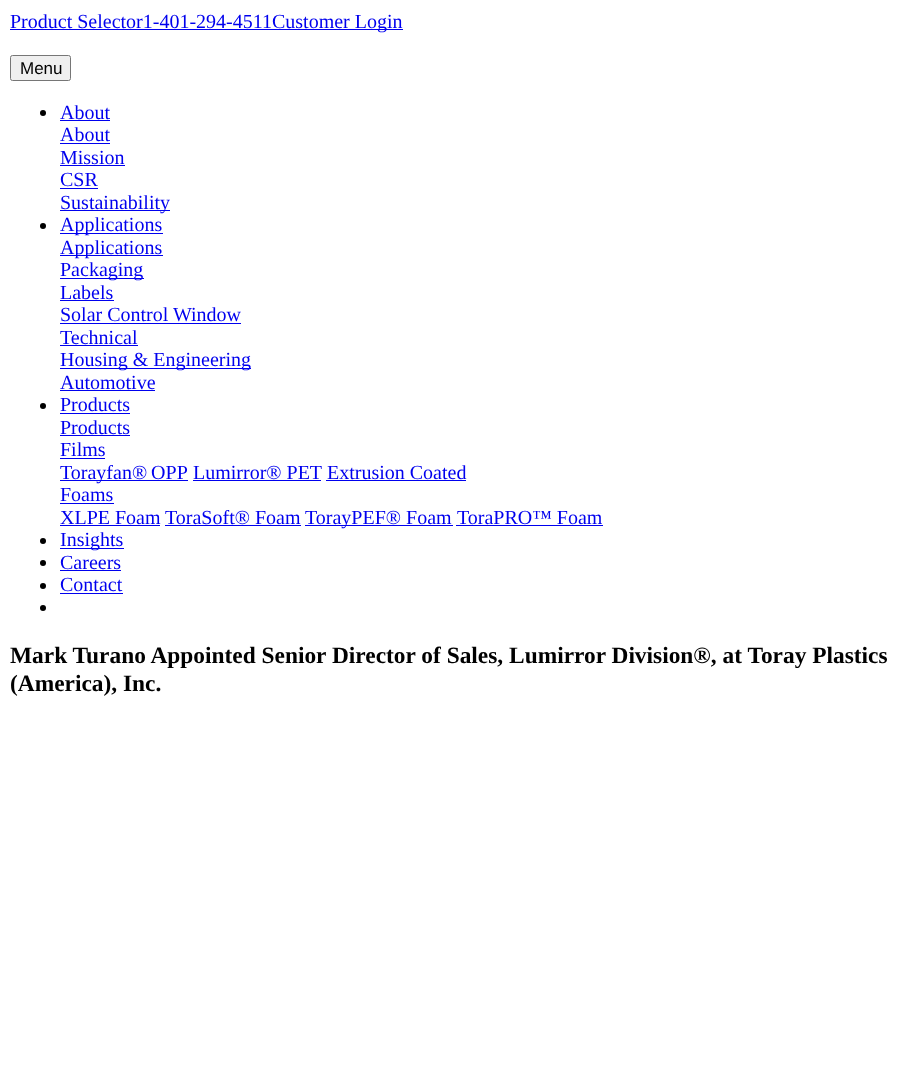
<svg xmlns="http://www.w3.org/2000/svg" width="909" height="1075">
<style>
.a{font:20px Liberation Serif;fill:#00e}
.b{font:17px Liberation Sans;fill:#000}
.c{font:bold 23.4px Liberation Serif;fill:#000}
</style>
<rect width="100%" height="100%" fill="#fff"/>
<path fill="#00e" d="M10 29h393v1H10z"/>
<rect fill="#efefef" stroke="#767676" x="10.5" y="55.5" width="60" height="25" rx="2"/>
<circle fill="#000" cx="43" cy="113" r="3"/>
<path fill="#00e" d="M60 120h50v1H60z"/>
<path fill="#00e" d="M60 143h50v1H60z"/>
<path fill="#00e" d="M60 165h65v1H60z"/>
<path fill="#00e" d="M60 188h38v1H60z"/>
<path fill="#00e" d="M60 210h110v1H60z"/>
<circle fill="#000" cx="43" cy="226" r="3"/>
<path fill="#00e" d="M60 233h103v1H60z"/>
<path fill="#00e" d="M60 255h103v1H60z"/>
<path fill="#00e" d="M60 278h84v1H60z"/>
<path fill="#00e" d="M60 300h54v1H60z"/>
<path fill="#00e" d="M60 323h181v1H60z"/>
<path fill="#00e" d="M60 345h78v1H60z"/>
<path fill="#00e" d="M60 368h191v1H60z"/>
<path fill="#00e" d="M60 390h95v1H60z"/>
<circle fill="#000" cx="43" cy="406" r="3"/>
<path fill="#00e" d="M60 413h70v1H60z"/>
<path fill="#00e" d="M60 435h70v1H60z"/>
<path fill="#00e" d="M60 458h45v1H60z"/>
<path fill="#00e" d="M60 480h128v1H60z"/>
<path fill="#00e" d="M193 480h128v1H193z"/>
<path fill="#00e" d="M326 480h140v1H326z"/>
<path fill="#00e" d="M60 503h54v1H60z"/>
<path fill="#00e" d="M60 525h100v1H60z"/>
<path fill="#00e" d="M165 525h136v1H165z"/>
<path fill="#00e" d="M305 525h148v1H305z"/>
<path fill="#00e" d="M456 525h147v1H456z"/>
<circle fill="#000" cx="43" cy="541" r="3"/>
<path fill="#00e" d="M60 548h64v1H60z"/>
<circle fill="#000" cx="43" cy="563" r="3"/>
<path fill="#00e" d="M60 570h61v1H60z"/>
<circle fill="#000" cx="43" cy="586" r="3"/>
<path fill="#00e" d="M60 593h63v1H60z"/>
<circle fill="#000" cx="43" cy="608" r="3"/>
<text class="a" x="10" y="28">Product Selector1-401-294-4511Customer Login</text>
<text class="b" x="20" y="74">Menu</text>
<text class="a" x="60" y="119">About</text>
<text class="a" x="60" y="141">About</text>
<text class="a" x="60" y="164">Mission</text>
<text class="a" x="60" y="186">CSR</text>
<text class="a" x="60" y="209">Sustainability</text>
<text class="a" x="60" y="231">Applications</text>
<text class="a" x="60" y="254">Applications</text>
<text class="a" x="60" y="276">Packaging</text>
<text class="a" x="60" y="299">Labels</text>
<text class="a" x="60" y="321">Solar Control Window</text>
<text class="a" x="60" y="344">Technical</text>
<text class="a" x="60" y="366">Housing &amp; Engineering</text>
<text class="a" x="60" y="389">Automotive</text>
<text class="a" x="60" y="411">Products</text>
<text class="a" x="60" y="434">Products</text>
<text class="a" x="60" y="456">Films</text>
<text class="a" x="60" y="479" word-spacing="-1">Torayfan® OPP</text>
<text class="a" x="193" y="479">Lumirror® PET</text>
<text class="a" x="327" y="479">Extrusion Coated</text>
<text class="a" x="60" y="501">Foams</text>
<text class="a" x="60" y="524">XLPE Foam</text>
<text class="a" x="165" y="524">ToraSoft® Foam</text>
<text class="a" x="305" y="524">TorayPEF® Foam</text>
<text class="a" x="457" y="524">ToraPRO™ Foam</text>
<text class="a" x="60" y="546">Insights</text>
<text class="a" x="60" y="569">Careers</text>
<text class="a" x="60" y="591">Contact</text>
<text class="c" x="10" y="663">Mark Turano Appointed Senior Director of Sales, Lumirror Division®, at Toray Plastics</text>
<text class="c" x="10" y="691">(America), Inc.</text>
</svg>
